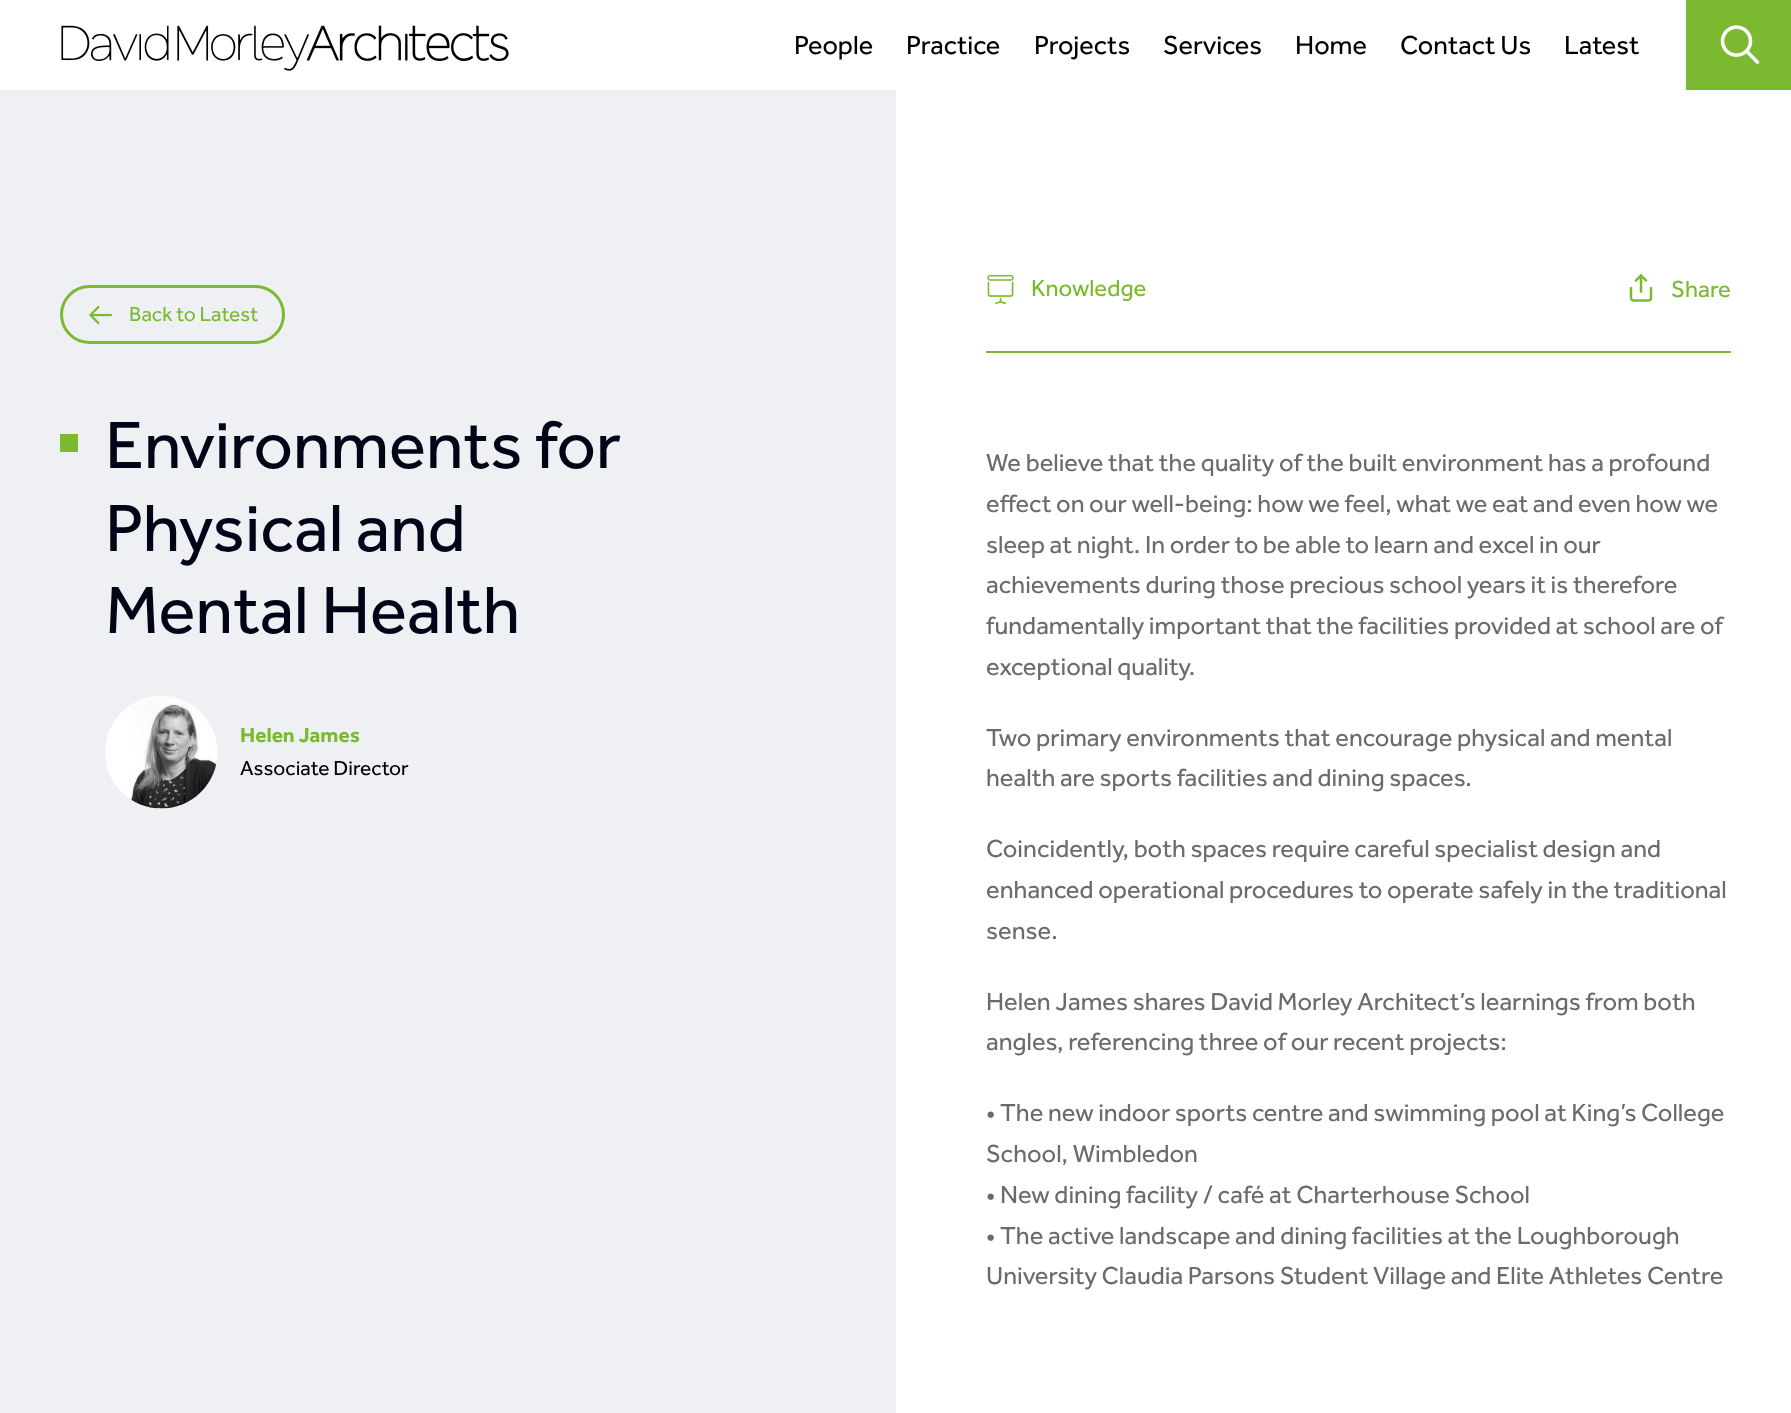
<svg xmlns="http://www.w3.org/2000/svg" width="1791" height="1413">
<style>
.a{font:27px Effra;fill:#000}
.b{font:21px Effra;fill:#7bba30}
.c{font:69px Effra;fill:#000417}
.d{font:bold 21px Effra;fill:#7bba30}
.e{font:21px Effra;fill:#000}
.f{font:24px Effra;fill:#7bba30}
.g{font:25.5px Effra;fill:#6b6b6b}
</style>
<rect width="100%" height="100%" fill="#fff"/>
<image href="1.png" x="61" y="25" width="448" height="46"/>
<path fill="#7bba30" d="M1686 0h105v90H1686z"/>
<image href="2.png" x="1720" y="25" width="40" height="39"/>
<path fill="#eef0f4" d="M0 90h896v1323H0z"/>
<rect fill="none" stroke="#7bba30" stroke-width="3" x="61.5" y="286.5" width="222" height="56" rx="28"/>
<image href="3.png" x="89" y="306" width="23" height="19"/>
<path fill="#7bba30" d="M60 434h18v18H60z"/>
<image href="4.png" x="105" y="696" width="113" height="113"/>
<image href="5.png" x="987" y="275" width="27" height="30"/>
<image href="6.png" x="1629" y="274" width="24" height="28"/>
<path fill="#7bba30" d="M986 351h745v2H986z"/>
<text class="a" x="794" y="54">People</text>
<text class="a" x="906" y="54">Practice</text>
<text class="a" x="1034" y="54">Projects</text>
<text class="a" x="1163" y="54">Services</text>
<text class="a" x="1295" y="54">Home</text>
<text class="a" x="1400" y="54">Contact Us</text>
<text class="a" x="1564" y="54">Latest</text>
<text class="b" x="129" y="321">Back to Latest</text>
<text class="c" x="105" y="468">Environments for</text>
<text class="c" x="105" y="551">Physical and</text>
<text class="c" x="105" y="633">Mental Health</text>
<text class="d" x="240" y="742">Helen James</text>
<text class="e" x="240" y="775">Associate Director</text>
<text class="f" x="1031" y="296">Knowledge</text>
<text class="f" x="1671" y="297">Share</text>
<text class="g" x="986" y="471">We believe that the quality of the built environment has a profound</text>
<text class="g" x="986" y="512">effect on our well-being: how we feel, what we eat and even how we</text>
<text class="g" x="986" y="553">sleep at night. In order to be able to learn and excel in our</text>
<text class="g" x="986" y="593">achievements during those precious school years it is therefore</text>
<text class="g" x="986" y="634">fundamentally important that the facilities provided at school are of</text>
<text class="g" x="986" y="675">exceptional quality.</text>
<text class="g" x="986" y="746">Two primary environments that encourage physical and mental</text>
<text class="g" x="986" y="786">health are sports facilities and dining spaces.</text>
<text class="g" x="986" y="857">Coincidently, both spaces require careful specialist design and</text>
<text class="g" x="986" y="898">enhanced operational procedures to operate safely in the traditional</text>
<text class="g" x="986" y="939">sense.</text>
<text class="g" x="986" y="1010">Helen James shares David Morley Architect’s learnings from both</text>
<text class="g" x="986" y="1050">angles, referencing three of our recent projects:</text>
<text class="g" x="986" y="1121">• The new indoor sports centre and swimming pool at King’s College</text>
<text class="g" x="986" y="1162">School, Wimbledon</text>
<text class="g" x="986" y="1203">• New dining facility / café at Charterhouse School</text>
<text class="g" x="986" y="1244">• The active landscape and dining facilities at the Loughborough</text>
<text class="g" x="986" y="1284">University Claudia Parsons Student Village and Elite Athletes Centre</text>
</svg>
